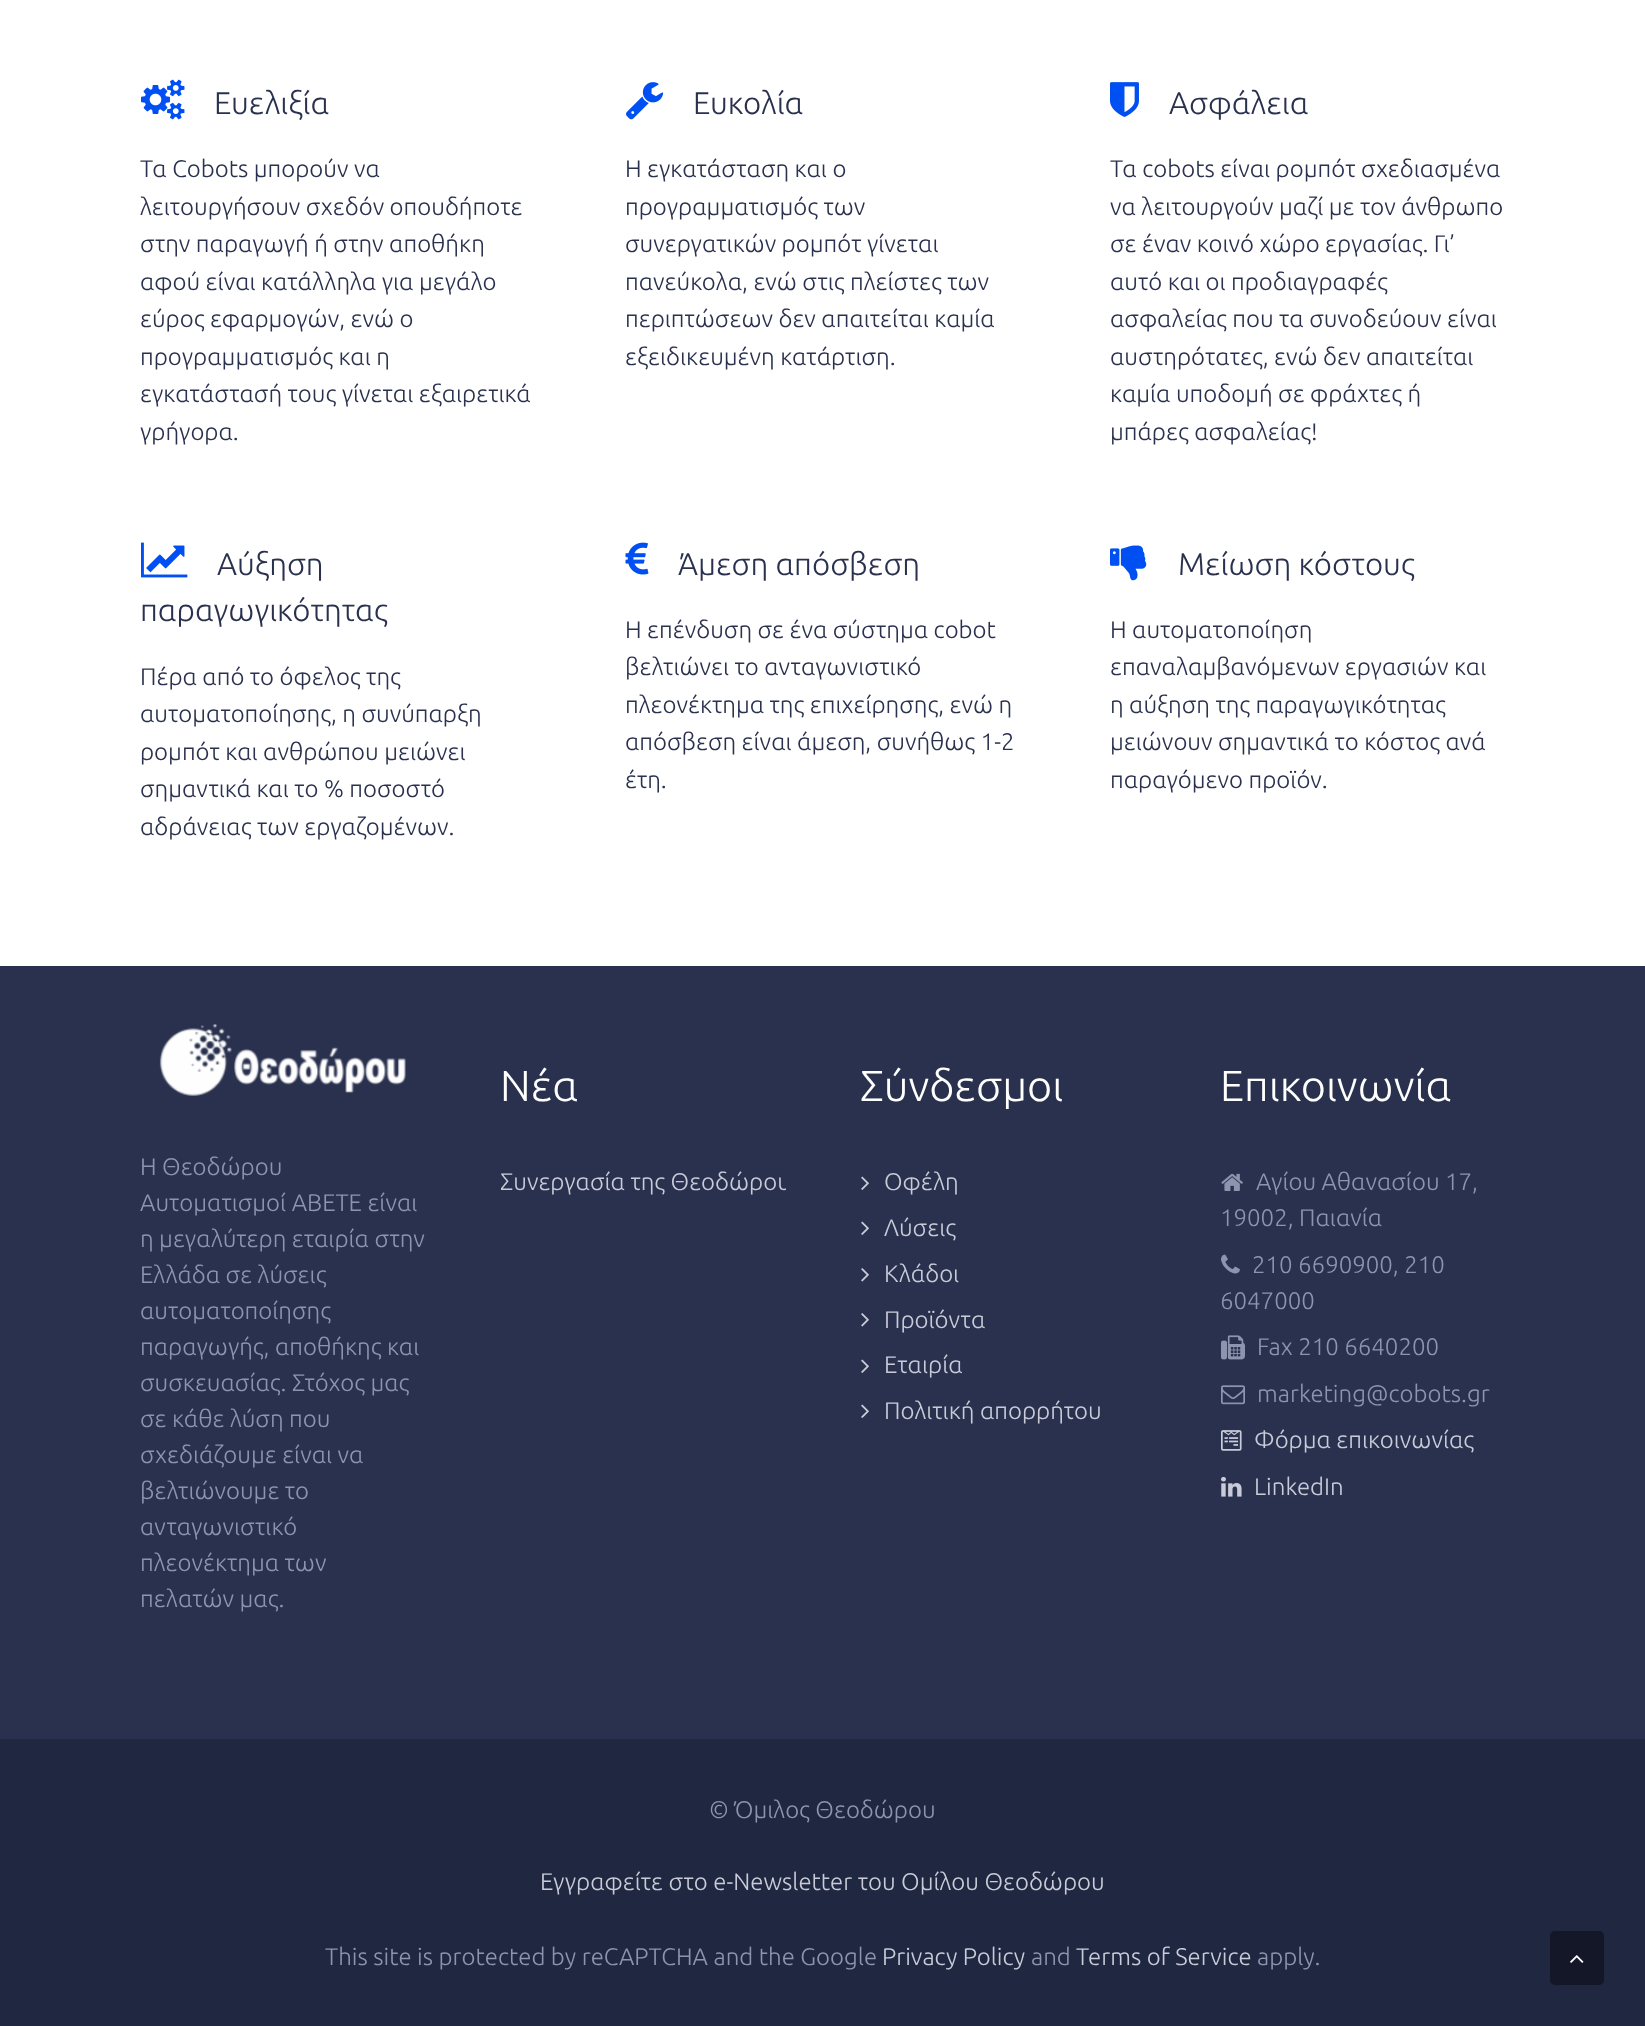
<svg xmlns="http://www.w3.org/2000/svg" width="1645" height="2026">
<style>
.a{font:300 31.25px Ubuntu;fill:#29314e}
.b{font:300 24px Ubuntu;fill:#29314e}
.c{font:300 24px Ubuntu;fill:#8d94ae}
.d{font:300 43.25px Ubuntu;fill:#fff}
.e{font:300 24px Ubuntu;fill:#c9ccd8}
</style>
<defs>
<clipPath id="clip1"><path d="M501 1164h285v51H501z"/></clipPath>
</defs>
<rect width="100%" height="100%" fill="#29314e"/>
<path fill="#fff" d="M0 0h1645v966H0z"/>
<image href="1.png" x="141" y="79" width="44" height="41"/>
<image href="2.png" x="626" y="82" width="38" height="38"/>
<image href="3.png" x="1110" y="82" width="29" height="35"/>
<image href="4.png" x="141" y="542" width="47" height="36"/>
<image href="5.png" x="625" y="542" width="24" height="33"/>
<image href="6.png" x="1110" y="545" width="37" height="36"/>
<image href="7.png" x="159" y="1023" width="247" height="73"/>
<image href="8.png" x="861" y="1176" width="8" height="14"/>
<image href="8.png" x="861" y="1221" width="8" height="14"/>
<image href="9.png" x="861" y="1268" width="8" height="14"/>
<image href="9.png" x="861" y="1313" width="8" height="14"/>
<image href="8.png" x="861" y="1359" width="8" height="14"/>
<image href="8.png" x="861" y="1404" width="8" height="14"/>
<image href="10.png" x="1221" y="1173" width="22" height="18"/>
<image href="11.png" x="1221" y="1254" width="19" height="20"/>
<image href="12.png" x="1221" y="1335" width="24" height="25"/>
<image href="13.png" x="1221" y="1385" width="24" height="20"/>
<image href="14.png" x="1221" y="1430" width="21" height="21"/>
<image href="15.png" x="1221" y="1476" width="21" height="21"/>
<path fill="#202741" d="M0 1739h1645v287H0z"/>
<path fill="#283152" d="M0 1737h1645v2H0z"/>
<rect fill="#131727" x="1550" y="1931" width="54" height="54" rx="5"/>
<image href="16.png" x="1570" y="1955" width="14" height="8"/>
<text class="a" x="214" y="114">Ευελιξία</text>
<text class="b" x="140" y="177">Τα Cobots μπορούν να</text>
<text class="b" x="140" y="215">λειτουργήσουν σχεδόν οπουδήποτε</text>
<text class="b" x="140" y="252">στην παραγωγή ή στην αποθήκη</text>
<text class="b" x="140" y="290">αφού είναι κατάλληλα για μεγάλο</text>
<text class="b" x="140" y="327">εύρος εφαρμογών, ενώ ο</text>
<text class="b" x="140" y="365">προγραμματισμός και η</text>
<text class="b" x="140" y="402">εγκατάστασή τους γίνεται εξαιρετικά</text>
<text class="b" x="140" y="440">γρήγορα.</text>
<text class="a" x="693" y="114">Ευκολία</text>
<text class="b" x="625" y="177">Η εγκατάσταση και ο</text>
<text class="b" x="625" y="215">προγραμματισμός των</text>
<text class="b" x="625" y="252">συνεργατικών ρομπότ γίνεται</text>
<text class="b" x="625" y="290">πανεύκολα, ενώ στις πλείστες των</text>
<text class="b" x="625" y="327">περιπτώσεων δεν απαιτείται καμία</text>
<text class="b" x="625" y="365">εξειδικευμένη κατάρτιση.</text>
<text class="a" x="1169" y="114">Ασφάλεια</text>
<text class="b" x="1110" y="177">Τα cobots είναι ρομπότ σχεδιασμένα</text>
<text class="b" x="1110" y="215">να λειτουργούν μαζί με τον άνθρωπο</text>
<text class="b" x="1110" y="252">σε έναν κοινό χώρο εργασίας. Γι’</text>
<text class="b" x="1110" y="290">αυτό και οι προδιαγραφές</text>
<text class="b" x="1110" y="327">ασφαλείας που τα συνοδεύουν είναι</text>
<text class="b" x="1110" y="365">αυστηρότατες, ενώ δεν απαιτείται</text>
<text class="b" x="1110" y="402">καμία υποδομή σε φράχτες ή</text>
<text class="b" x="1110" y="440">μπάρες ασφαλείας!</text>
<text class="a" x="217" y="575">Αύξηση</text>
<text class="a" x="140" y="621">παραγωγικότητας</text>
<text class="b" x="140" y="685">Πέρα από το όφελος της</text>
<text class="b" x="140" y="722">αυτοματοποίησης, η συνύπαρξη</text>
<text class="b" x="140" y="760">ρομπότ και ανθρώπου μειώνει</text>
<text class="b" x="140" y="797">σημαντικά και το % ποσοστό</text>
<text class="b" x="140" y="835">αδράνειας των εργαζομένων.</text>
<text class="a" x="678" y="575">Άμεση απόσβεση</text>
<text class="b" x="625" y="638">Η επένδυση σε ένα σύστημα cobot</text>
<text class="b" x="625" y="675">βελτιώνει το ανταγωνιστικό</text>
<text class="b" x="625" y="713">πλεονέκτημα της επιχείρησης, ενώ η</text>
<text class="b" x="625" y="750">απόσβεση είναι άμεση, συνήθως 1-2</text>
<text class="b" x="625" y="788">έτη.</text>
<text class="a" x="1178" y="575">Μείωση κόστους</text>
<text class="b" x="1110" y="638">Η αυτοματοποίηση</text>
<text class="b" x="1110" y="675">επαναλαμβανόμενων εργασιών και</text>
<text class="b" x="1110" y="713">η αύξηση της παραγωγικότητας</text>
<text class="b" x="1110" y="750">μειώνουν σημαντικά το κόστος ανά</text>
<text class="b" x="1110" y="788">παραγόμενο προϊόν.</text>
<text class="c" x="140" y="1175">Η Θεοδώρου</text>
<text class="c" x="140" y="1211">Αυτοματισμοί ΑΒΕΤΕ είναι</text>
<text class="c" x="140" y="1247">η μεγαλύτερη εταιρία στην</text>
<text class="c" x="140" y="1283">Ελλάδα σε λύσεις</text>
<text class="c" x="140" y="1319">αυτοματοποίησης</text>
<text class="c" x="140" y="1355">παραγωγής, αποθήκης και</text>
<text class="c" x="140" y="1391">συσκευασίας. Στόχος μας</text>
<text class="c" x="140" y="1427">σε κάθε λύση που</text>
<text class="c" x="140" y="1463">σχεδιάζουμε είναι να</text>
<text class="c" x="140" y="1499">βελτιώνουμε το</text>
<text class="c" x="140" y="1535">ανταγωνιστικό</text>
<text class="c" x="140" y="1571">πλεονέκτημα των</text>
<text class="c" x="140" y="1607">πελατών μας.</text>
<text class="d" x="500" y="1101">Νέα</text>
<g clip-path="url(#clip1)">
<text class="e" x="500" y="1190">Συνεργασία της Θεοδώρου</text>
</g>
<text class="d" x="860" y="1101">Σύνδεσμοι</text>
<text class="e" x="884" y="1190">Οφέλη</text>
<text class="e" x="884" y="1236">Λύσεις</text>
<text class="e" x="884" y="1282">Κλάδοι</text>
<text class="e" x="884" y="1328">Προϊόντα</text>
<text class="e" x="884" y="1373">Εταιρία</text>
<text class="e" x="884" y="1419">Πολιτική απορρήτου</text>
<text class="d" x="1220" y="1101">Επικοινωνία</text>
<text class="c" x="1256" y="1190">Αγίου Αθανασίου 17,</text>
<text class="c" x="1220" y="1226">19002, Παιανία</text>
<text class="c" x="1252" y="1273">210 6690900, 210</text>
<text class="c" x="1220" y="1309">6047000</text>
<text class="c" x="1257" y="1355">Fax 210 6640200</text>
<text class="c" x="1257" y="1402">marketing@cobots.gr</text>
<text class="e" x="1254" y="1448">Φόρμα επικοινωνίας</text>
<text class="e" x="1254" y="1495">LinkedIn</text>
<text class="c" x="709" y="1818">© Όμιλος Θεοδώρου</text>
<text class="e" x="540" y="1890">Εγγραφείτε στο e-Newsletter του Ομίλου Θεοδώρου</text>
<text class="c" x="325" y="1965">This site is protected by reCAPTCHA and the Google</text>
<text class="e" x="882" y="1965">Privacy Policy</text>
<text class="c" x="1031" y="1965">and</text>
<text class="e" x="1076" y="1965">Terms of Service</text>
<text class="c" x="1257" y="1965">apply.</text>
</svg>
